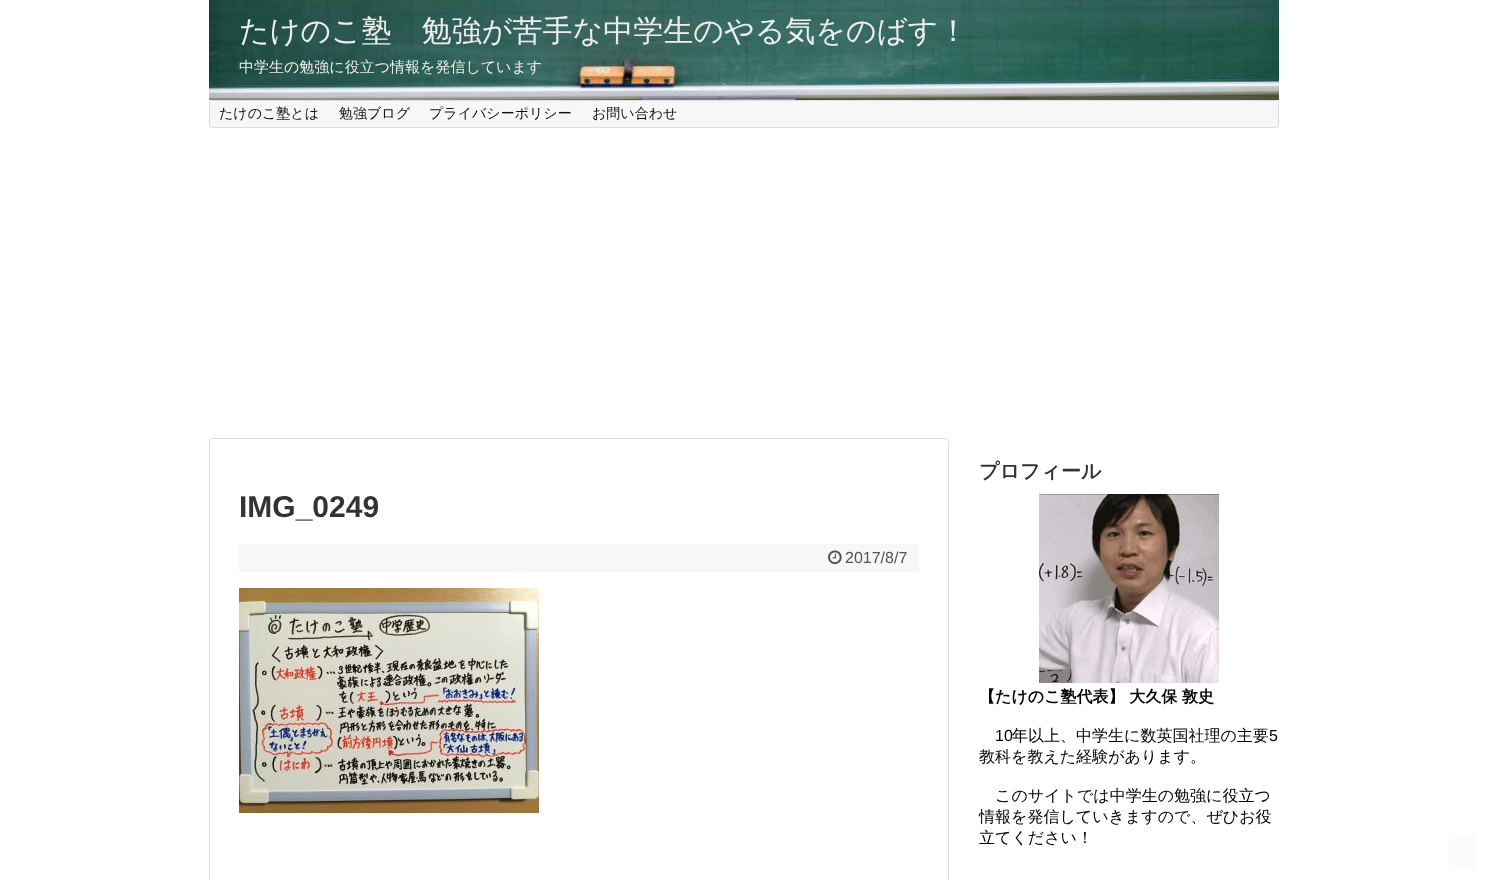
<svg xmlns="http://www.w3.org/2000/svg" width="1487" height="880">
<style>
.a{font:500 30px WenQuanYi Zen Hei;fill:#ededed}
.b{font:500 15px WenQuanYi Zen Hei;fill:#ededed}
.c{font:500 14px WenQuanYi Zen Hei;fill:#111}
.d{font:bold 30px Liberation Sans;fill:#333}
.e{font:16px Liberation Sans;fill:#555}
.f{font:bold 20px WenQuanYi Zen Hei;fill:#333}
.g{font:bold 16px WenQuanYi Zen Hei;fill:#000}
.h{font:16px Liberation Sans;fill:#000}
.i{font:500 16px WenQuanYi Zen Hei;fill:#000}
</style>
<rect width="100%" height="100%" fill="#fff"/>
<image href="1.png" x="209" y="0" width="1070" height="100"/>
<rect fill="#f7f7f7" stroke="#ddd" x="209.5" y="100.5" width="1069" height="27" rx="2.5"/>
<rect fill="none" stroke="#ddd" x="209.5" y="438.5" width="739" height="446" rx="3.5"/>
<path fill="#f7f7f7" d="M239 544h680v28H239z"/>
<image href="2.png" x="828" y="550" width="14" height="15"/>
<image href="3.png" x="239" y="588" width="300" height="225"/>
<image href="4.png" x="1039" y="494" width="180" height="189"/>
<rect fill="#fbfbfb" x="1449" y="834" width="28" height="36" rx="4"/>
<text class="a" x="239" y="41">たけのこ塾　勉強が苦手な中学生のやる気をのばす！</text>
<text class="b" x="239" y="72">中学生の勉強に役立つ情報を発信しています</text>
<text class="c" x="219" y="118">たけのこ塾とは</text>
<text class="c" x="339" y="118">勉強ブログ</text>
<text class="c" x="429" y="118">プライバシーポリシー</text>
<text class="c" x="592" y="118">お問い合わせ</text>
<text class="d" x="239" y="517">IMG_0249</text>
<text class="e" x="845" y="563">2017/8/7</text>
<text class="f" x="979" y="478">プロフィール</text>
<text class="g" x="979" y="702">【たけのこ塾代表】 大久保 敦史</text>
<text class="h" x="995" y="741">10</text>
<text class="i" x="1012" y="741">年以上、中学生に数英国社理の主要</text>
<text class="h" x="1269" y="741">5</text>
<text class="i" x="979" y="762">教科を教えた経験があります。</text>
<text class="i" x="995" y="801">このサイトでは中学生の勉強に役立つ</text>
<text class="i" x="979" y="822">情報を発信していきますので、ぜひお役</text>
<text class="i" x="979" y="843">立てください！</text>
</svg>
